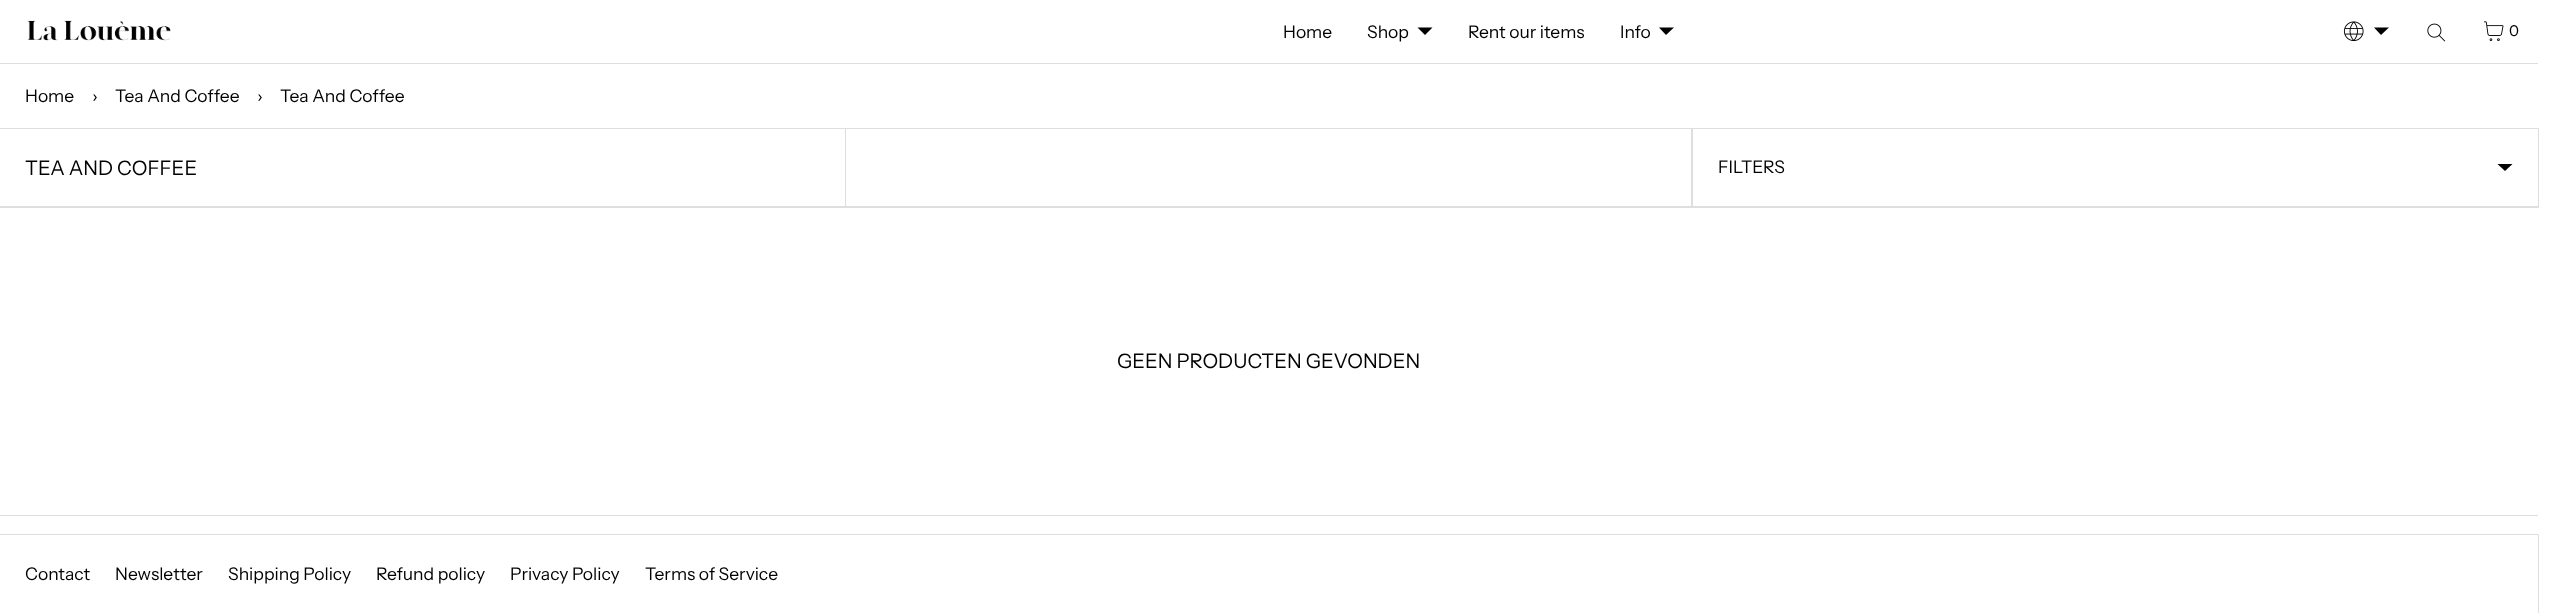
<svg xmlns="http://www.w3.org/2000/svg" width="2556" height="613">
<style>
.a{font:17.5px Instrument Sans;fill:#000}
.b{font:15px Instrument Sans;letter-spacing:1px;fill:#000}
.c{font:20px Instrument Sans;fill:#000}
</style>
<rect width="100%" height="100%" fill="#fff"/>
<path fill="#dfdede" d="M0 63h2538v1H0z"/>
<image href="1.png" x="27" y="20" width="144" height="21"/>
<path fill="#000001" d="M1417.5 27.5h15l-7.5 7.5z"/>
<path fill="#000001" d="M1659 27.5h15l-8 7.5z"/>
<image href="2.png" x="2343" y="21" width="21" height="21"/>
<path fill="#000" d="M2374 27.5h15l-8 7.5z"/>
<image href="3.png" x="2427" y="23" width="19" height="19"/>
<image href="4.png" x="2484" y="21" width="20" height="20"/>
<path fill="#dfdede" d="M0 206h2538v1H0z"/>
<path fill="none" stroke="#dfdede" d="M-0.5 128.5h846v79H-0.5z"/>
<path fill="none" stroke="#dfdede" d="M845.5 128.5h847v79H845.5z"/>
<path fill="none" stroke="#dfdede" d="M1691.5 128.5h847v79H1691.5z"/>
<path fill="#000" d="M2497.5 164h15l-7.5 7z"/>
<path fill="#dfdede" d="M0 515h2538v1H0z"/>
<path fill="none" stroke="#dfdede" d="M-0.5 534.5h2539v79H-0.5z"/>
<text class="a" x="1283" y="38">Home</text>
<text class="a" x="1367" y="38">Shop</text>
<text class="a" x="1468" y="38">Rent our items</text>
<text class="a" x="1620" y="38">Info</text>
<text class="b" x="2509" y="36">0</text>
<text class="a" x="25" y="102">Home</text>
<text class="a" x="92" y="102">›</text>
<text class="a" x="115" y="102">Tea And Coffee</text>
<text class="a" x="257" y="102">›</text>
<text class="a" x="280" y="102">Tea And Coffee</text>
<text class="c" x="25" y="175">TEA AND COFFEE</text>
<text class="a" x="1718" y="173">FILTERS</text>
<text class="c" x="1117" y="368">GEEN PRODUCTEN GEVONDEN</text>
<text class="a" x="25" y="580">Contact</text>
<text class="a" x="115" y="580">Newsletter</text>
<text class="a" x="228" y="580">Shipping Policy</text>
<text class="a" x="376" y="580">Refund policy</text>
<text class="a" x="510" y="580">Privacy Policy</text>
<text class="a" x="645" y="580">Terms of Service</text>
</svg>
